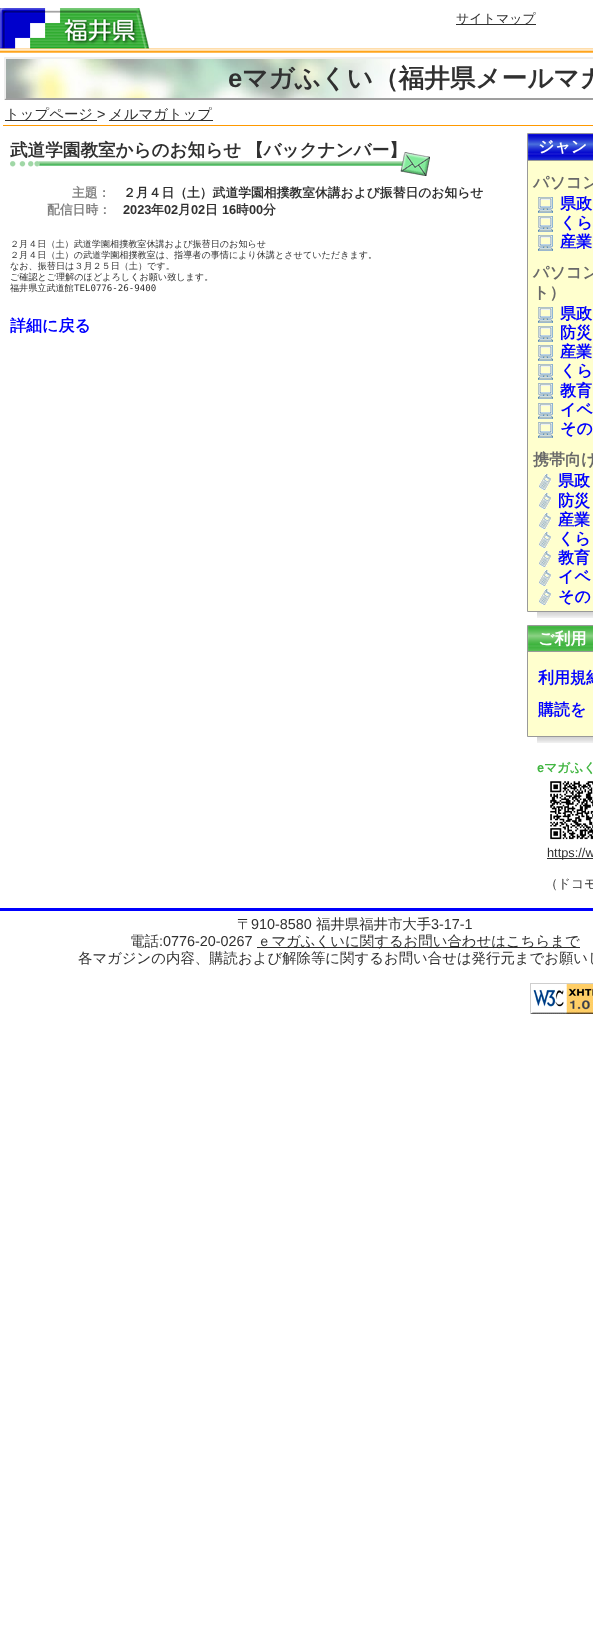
<svg xmlns="http://www.w3.org/2000/svg" width="593" height="1635">
<style>
.a{font:500 13px WenQuanYi Zen Hei;fill:#303030}
.b{font:bold 25.6px Liberation Sans;fill:#303030}
.c{font:bold 25.6px WenQuanYi Zen Hei;fill:#303030}
.d{font:500 14.4px WenQuanYi Zen Hei;fill:#303030}
.e{font:14.4px Liberation Sans;fill:#303030}
.f{font:bold 17.6px WenQuanYi Zen Hei;fill:#303030}
.g{font:bold 12.8px WenQuanYi Zen Hei;fill:#808080}
.h{font:bold 12.8px WenQuanYi Zen Hei;fill:#303030}
.i{font:bold 12.8px Liberation Sans;fill:#303030}
.j{font:500 9.1px WenQuanYi Zen Hei;fill:#303030}
.k{font:9.1px DejaVu Sans Mono;fill:#303030}
.l{font:bold 16px WenQuanYi Zen Hei;fill:#00f}
.m{font:bold 16px WenQuanYi Zen Hei;fill:#fff}
.n{font:bold 16px WenQuanYi Zen Hei;fill:#696969}
.o{font:bold 12.8px Liberation Sans;fill:#42b642}
.p{font:bold 12.8px WenQuanYi Zen Hei;fill:#42b642}
.q{font:12.8px Liberation Sans;fill:#303030}
.r{font:500 12.8px WenQuanYi Zen Hei;fill:#303030}
</style>
<rect width="100%" height="100%" fill="#fff"/>
<image href="1.png" x="0" y="48" width="593" height="5"/>
<image href="2.png" x="0" y="8" width="150" height="42"/>
<path fill="#303030" d="M456 24h80v1H456z"/>
<image href="3.png" x="6" y="59" width="384" height="39"/>
<path fill="#eee" d="M4 57h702l-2 2h-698z"/>
<path fill="#9f9f9f" d="M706 100h-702l2-2h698z"/>
<path fill="#eee" d="M4 100v-43l2 2v39z"/>
<path fill="#f90" d="M3 125h590v1H3z"/>
<path fill="#303030" d="M5 120h92v1H5z"/>
<path fill="#303030" d="M109 120h104v1H109z"/>
<image href="4.png" x="10" y="152" width="420" height="24"/>
<image href="5.png" x="537" y="612" width="56" height="6"/>
<path fill="#ffffce" d="M528 161h65v450H528z"/>
<path fill="none" stroke="#999" d="M527.5 133.5h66v478H527.5z"/>
<image href="6.png" x="528" y="134" width="65" height="26"/>
<path fill="#999" d="M528 160h65v1H528z"/>
<image href="7.png" x="538" y="197" width="15" height="16"/>
<image href="7.png" x="538" y="216" width="15" height="16"/>
<image href="7.png" x="538" y="235" width="15" height="16"/>
<image href="7.png" x="538" y="307" width="15" height="16"/>
<image href="7.png" x="538" y="326" width="15" height="16"/>
<image href="7.png" x="538" y="345" width="15" height="16"/>
<image href="7.png" x="538" y="364" width="15" height="16"/>
<image href="7.png" x="538" y="383" width="15" height="16"/>
<image href="7.png" x="538" y="403" width="15" height="16"/>
<image href="7.png" x="538" y="422" width="15" height="16"/>
<image href="8.png" x="539" y="474" width="12" height="16"/>
<image href="8.png" x="539" y="493" width="12" height="16"/>
<image href="8.png" x="539" y="513" width="12" height="16"/>
<image href="8.png" x="539" y="532" width="12" height="16"/>
<image href="8.png" x="539" y="551" width="12" height="16"/>
<image href="8.png" x="539" y="570" width="12" height="16"/>
<image href="8.png" x="539" y="589" width="12" height="16"/>
<image href="9.png" x="537" y="737" width="56" height="6"/>
<path fill="#ffffce" d="M528 652h65v84H528z"/>
<path fill="none" stroke="#999" d="M527.5 625.5h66v111H527.5z"/>
<image href="10.png" x="528" y="626" width="65" height="25"/>
<path fill="#999" d="M528 651h65v1H528z"/>
<image href="11.png" x="550" y="781" width="43" height="59"/>
<path fill="#303030" d="M547 858h46v1H547z"/>
<path fill="#00f" d="M0 908h593v3H0z"/>
<path fill="#303030" d="M257 947h323v1H257z"/>
<image href="12.png" x="530" y="983" width="63" height="31"/>
<text class="a" x="456" y="23">サイトマップ</text>
<text class="b" x="228" y="87">e</text>
<text class="c" x="242" y="87">マガふくい（福井県メールマガ</text>
<text class="d" x="5" y="119">トップページ</text>
<text class="e" x="97" y="119">&gt;</text>
<text class="d" x="109" y="119">メルマガトップ</text>
<text class="f" x="10" y="156">武道学園教室からのお知らせ</text>
<text class="f" x="246" y="156">【バックナンバー】</text>
<text class="g" x="72" y="197">主題：</text>
<text class="h" x="123" y="197">２月４日（土）武道学園相撲教室休講および振替日のお知らせ</text>
<text class="g" x="47" y="214">配信日時：</text>
<text class="i" x="123" y="214">2023</text>
<text class="h" x="151" y="214">年</text>
<text class="i" x="164" y="214">02</text>
<text class="h" x="178" y="214">月</text>
<text class="i" x="191" y="214">02</text>
<text class="h" x="205" y="214">日</text>
<text class="i" x="222" y="214">16</text>
<text class="h" x="236" y="214">時</text>
<text class="i" x="249" y="214">00</text>
<text class="h" x="263" y="214">分</text>
<text class="j" x="10" y="247">２月４日（土）武道学園相撲教室休講および振替日のお知らせ</text>
<text class="j" x="10" y="258">２月４日（土）の武道学園相撲教室は、指導者の事情により休講とさせていただきます。</text>
<text class="j" x="10" y="269">なお、振替日は３月２５日（土）です。</text>
<text class="j" x="10" y="280">ご確認とご理解のほどよろしくお願い致します。</text>
<text class="j" x="10" y="291">福井県立武道館</text>
<text class="k" x="74" y="291">TEL0776-26-9400</text>
<text class="l" x="10" y="331">詳細に戻る</text>
<text class="m" x="538" y="152">ジャン</text>
<text class="n" x="533" y="188">パソコン</text>
<text class="l" x="560" y="209">県政</text>
<text class="l" x="560" y="228">くら</text>
<text class="l" x="560" y="247">産業</text>
<text class="n" x="533" y="278">パソコン</text>
<text class="n" x="533" y="298">ト）</text>
<text class="l" x="560" y="319">県政</text>
<text class="l" x="560" y="338">防災</text>
<text class="l" x="560" y="357">産業</text>
<text class="l" x="560" y="376">くら</text>
<text class="l" x="560" y="396">教育</text>
<text class="l" x="560" y="415">イベ</text>
<text class="l" x="560" y="434">その</text>
<text class="n" x="533" y="465">携帯向け</text>
<text class="l" x="558" y="486">県政</text>
<text class="l" x="558" y="506">防災</text>
<text class="l" x="558" y="525">産業</text>
<text class="l" x="558" y="544">くら</text>
<text class="l" x="558" y="563">教育</text>
<text class="l" x="558" y="582">イベ</text>
<text class="l" x="558" y="602">その</text>
<text class="m" x="538" y="644">ご利用</text>
<text class="l" x="538" y="683">利用規約</text>
<text class="l" x="538" y="715">購読を</text>
<text class="o" x="537" y="772">e</text>
<text class="p" x="544" y="772">マガふく</text>
<text class="q" x="547" y="857">https://w</text>
<text class="r" x="545" y="888">（ドコモ</text>
<text class="d" x="237" y="929">〒</text>
<text class="e" x="251" y="929">910-8580</text>
<text class="d" x="316" y="929">福井県福井市大手</text>
<text class="e" x="431" y="929">3-17-1</text>
<text class="d" x="130" y="946">電話</text>
<text class="e" x="159" y="946">:0776-20-0267</text>
<text class="d" x="257" y="946">ｅマガふくいに関するお問い合わせはこちらまで</text>
<text class="d" x="78" y="963">各マガジンの内容、購読および解除等に関するお問い合せは発行元までお願いし</text>
</svg>
